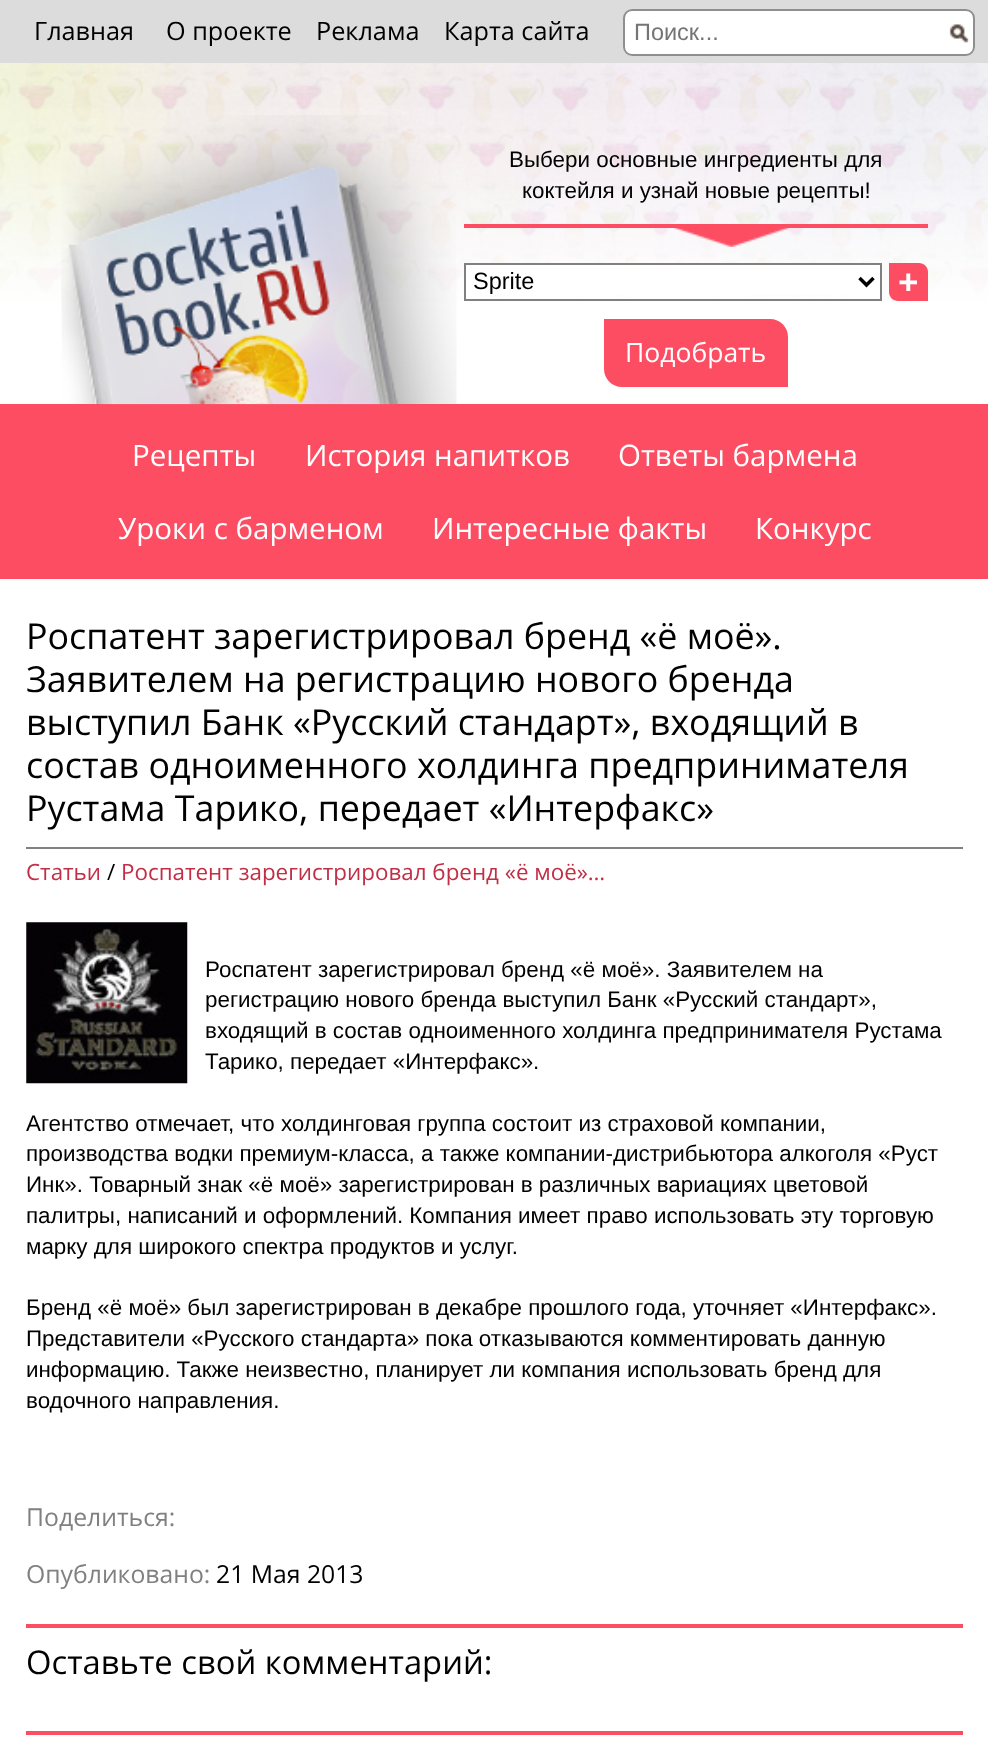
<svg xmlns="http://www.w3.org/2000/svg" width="988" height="1762">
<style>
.a{font:25.25px Open Sans;fill:#000}
.b{font:23.5px Liberation Sans;fill:#757575}
.c{font:22.4px Liberation Sans;fill:#000}
.d{font:23.5px Liberation Sans;fill:#000}
.e{font:bold 36px Open Sans;fill:#fff}
.f{font:26.5px Open Sans;fill:#fff}
.g{font:29.5px Open Sans;fill:#fff}
.h{font:35.8px Open Sans;fill:#000}
.i{font:22.4px Open Sans;fill:#c12e45}
.j{font:22.4px Open Sans;fill:#000}
.k{font:24.75px Open Sans;fill:#808080}
.l{font:24.75px Open Sans;fill:#000}
.m{font:32.75px Open Sans;fill:#000}
</style>
<rect width="100%" height="100%" fill="#fff"/>
<image href="1.png" x="0" y="63" width="988" height="239"/>
<path fill="#dcdcdc" d="M0 0h988v63H0z"/>
<rect fill="#fff" x="623" y="9" width="352" height="47" rx="9"/>
<image href="2.png" x="949" y="24" width="20" height="19"/>
<rect fill="none" stroke="#8f8f8f" stroke-width="2" x="624" y="10" width="350" height="45" rx="8"/>
<path fill="#fd4d62" d="M0 404h988v175H0z"/>
<image href="3.png" x="61" y="115" width="396" height="290"/>
<path fill="#fd4d62" d="M464 224h464v4H464z"/>
<image href="4.png" x="673" y="228" width="117" height="19"/>
<path fill="#fff" d="M466 265h414v30H466z"/>
<path fill="none" stroke="#808080" stroke-width="2" d="M465 264h416v36H465z"/>
<path fill="none" stroke="#000" stroke-width="3.5" d="M859.5 278l7 7l7-7"/>
<path fill="#fd4d62" d="M889 263h30c5 0 9 4 9 9v29h-30c-5 0-9-4-9-9z"/>
<path fill="#fd4d62" d="M604 319h166c10 0 18 8 18 18v50h-166c-10 0-18-8-18-18z"/>
<path fill="#fd4d62" d="M26 1624h937v4H26z"/>
<path fill="#808080" d="M26 847h937v2H26z"/>
<image href="5.png" x="26" y="922" width="162" height="162"/>
<path fill="#fd4d62" d="M26 1731h937v4H26z"/>
<text class="a" x="34" y="40">Главная</text>
<text class="a" x="166" y="40">О проекте</text>
<text class="a" x="316" y="40">Реклама</text>
<text class="a" x="444" y="40">Карта сайта</text>
<text class="b" x="634" y="40">Поиск...</text>
<text class="c" x="509" y="167">Выбери основные ингредиенты для</text>
<text class="c" x="522" y="198">коктейля и узнай новые рецепты!</text>
<text class="d" x="473" y="289">Sprite</text>
<text class="e" x="898" y="295">+</text>
<text class="f" x="625" y="362">Подобрать</text>
<text class="g" x="132" y="466">Рецепты</text>
<text class="g" x="305" y="466">История напитков</text>
<text class="g" x="618" y="466">Ответы бармена</text>
<text class="g" x="118" y="539">Уроки с барменом</text>
<text class="g" x="432" y="539">Интересные факты</text>
<text class="g" x="755" y="539">Конкурс</text>
<text class="h" x="26" y="649">Роспатент зарегистрировал бренд «ё моё».</text>
<text class="h" x="26" y="692">Заявителем на регистрацию нового бренда</text>
<text class="h" x="26" y="735">выступил Банк «Русский стандарт», входящий в</text>
<text class="h" x="26" y="778">состав одноименного холдинга предпринимателя</text>
<text class="h" x="26" y="821">Рустама Тарико, передает «Интерфакс»</text>
<text class="i" x="26" y="880">Статьи</text>
<text class="j" x="107" y="880">/</text>
<text class="i" x="121" y="880">Роспатент зарегистрировал бренд «ё моё»…</text>
<text class="c" x="205" y="977">Роспатент зарегистрировал бренд «ё моё». Заявителем на</text>
<text class="c" x="205" y="1007">регистрацию нового бренда выступил Банк «Русский стандарт»,</text>
<text class="c" x="205" y="1038">входящий в состав одноименного холдинга предпринимателя Рустама</text>
<text class="c" x="205" y="1069">Тарико, передает «Интерфакс».</text>
<text class="c" x="26" y="1131">Агентство отмечает, что холдинговая группа состоит из страховой компании,</text>
<text class="c" x="26" y="1161">производства водки премиум-класса, а также компании-дистрибьютора алкоголя «Руст</text>
<text class="c" x="26" y="1192">Инк». Товарный знак «ё моё» зарегистрирован в различных вариациях цветовой</text>
<text class="c" x="26" y="1223">палитры, написаний и оформлений. Компания имеет право использовать эту торговую</text>
<text class="c" x="26" y="1254">марку для широкого спектра продуктов и услуг.</text>
<text class="c" x="26" y="1315">Бренд «ё моё» был зарегистрирован в декабре прошлого года, уточняет «Интерфакс».</text>
<text class="c" x="26" y="1346">Представители «Русского стандарта» пока отказываются комментировать данную</text>
<text class="c" x="26" y="1377">информацию. Также неизвестно, планирует ли компания использовать бренд для</text>
<text class="c" x="26" y="1408">водочного направления.</text>
<text class="k" x="26" y="1526">Поделиться:</text>
<text class="k" x="26" y="1583">Опубликовано:</text>
<text class="l" x="216" y="1583">21 Мая 2013</text>
<text class="m" x="26" y="1674">Оставьте свой комментарий:</text>
</svg>
